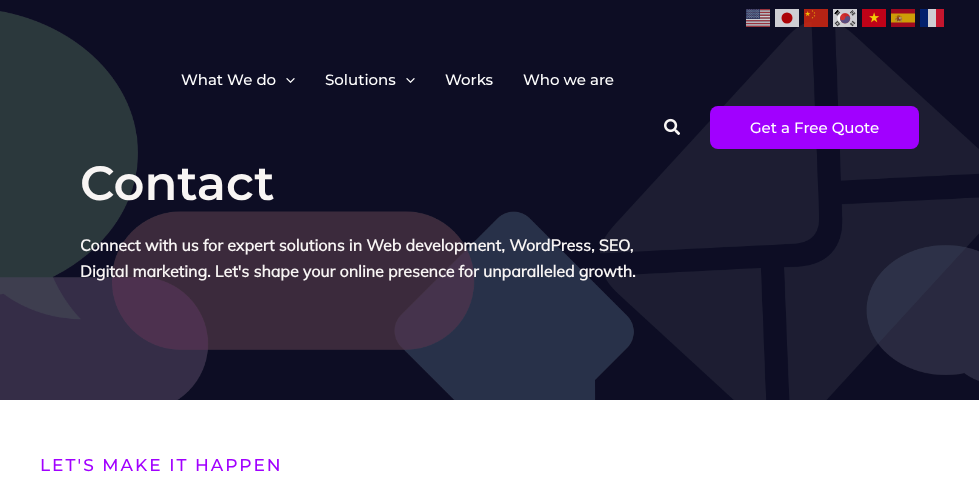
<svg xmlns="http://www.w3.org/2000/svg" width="979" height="495">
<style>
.a{font:500 15px Montserrat;fill:#fff}
.b{font:600 48px Montserrat;fill:#f8f5f4}
.c{font:bold 16px Mulish;fill:#f8f5f4}
.d{font:500 17px Montserrat;letter-spacing:2px;fill:#a100ff}
</style>
<rect width="100%" height="100%" fill="#0d0d24"/>
<image href="8.png" x="0" y="11" width="979" height="389"/>
<image href="1.png" x="746" y="9" width="24" height="18"/>
<path fill="#ffffffcc" d="M775 9h24v18H775z"/>
<image href="2.png" x="804" y="9" width="24" height="18"/>
<image href="3.png" x="833" y="9" width="24" height="18"/>
<image href="4.png" x="862" y="9" width="24" height="18"/>
<image href="5.png" x="891" y="9" width="24" height="18"/>
<path fill="#03216d" d="M920 9h8v18H920z"/>
<path fill="#cfcfd3" d="M928 9h8v18H928z"/>
<path fill="#c5162e" d="M936 9h8v18H936z"/>
<circle fill="#ab0307" cx="787" cy="18" r="5.5"/>
<image href="6.png" x="286" y="78" width="9" height="5"/>
<image href="6.png" x="406" y="78" width="9" height="5"/>
<image href="7.png" x="664" y="118" width="16" height="17"/>
<rect fill="#a100ff" x="710" y="106" width="209" height="43" rx="8"/>
<path fill="#fff" d="M0 400h979v95H0z"/>
<text class="a" x="181" y="85">What We do</text>
<text class="a" x="325" y="85">Solutions</text>
<text class="a" x="445" y="85">Works</text>
<text class="a" x="523" y="85">Who we are</text>
<text class="a" x="750" y="133">Get a Free Quote</text>
<text class="b" x="80" y="200">Contact</text>
<text class="c" x="80" y="251">Connect with us for expert solutions in Web development, WordPress, SEO,</text>
<text class="c" x="80" y="277">Digital marketing. Let's shape your online presence for unparalleled growth.</text>
<text class="d" x="40" y="471">LET'S MAKE IT HAPPEN</text>
</svg>
